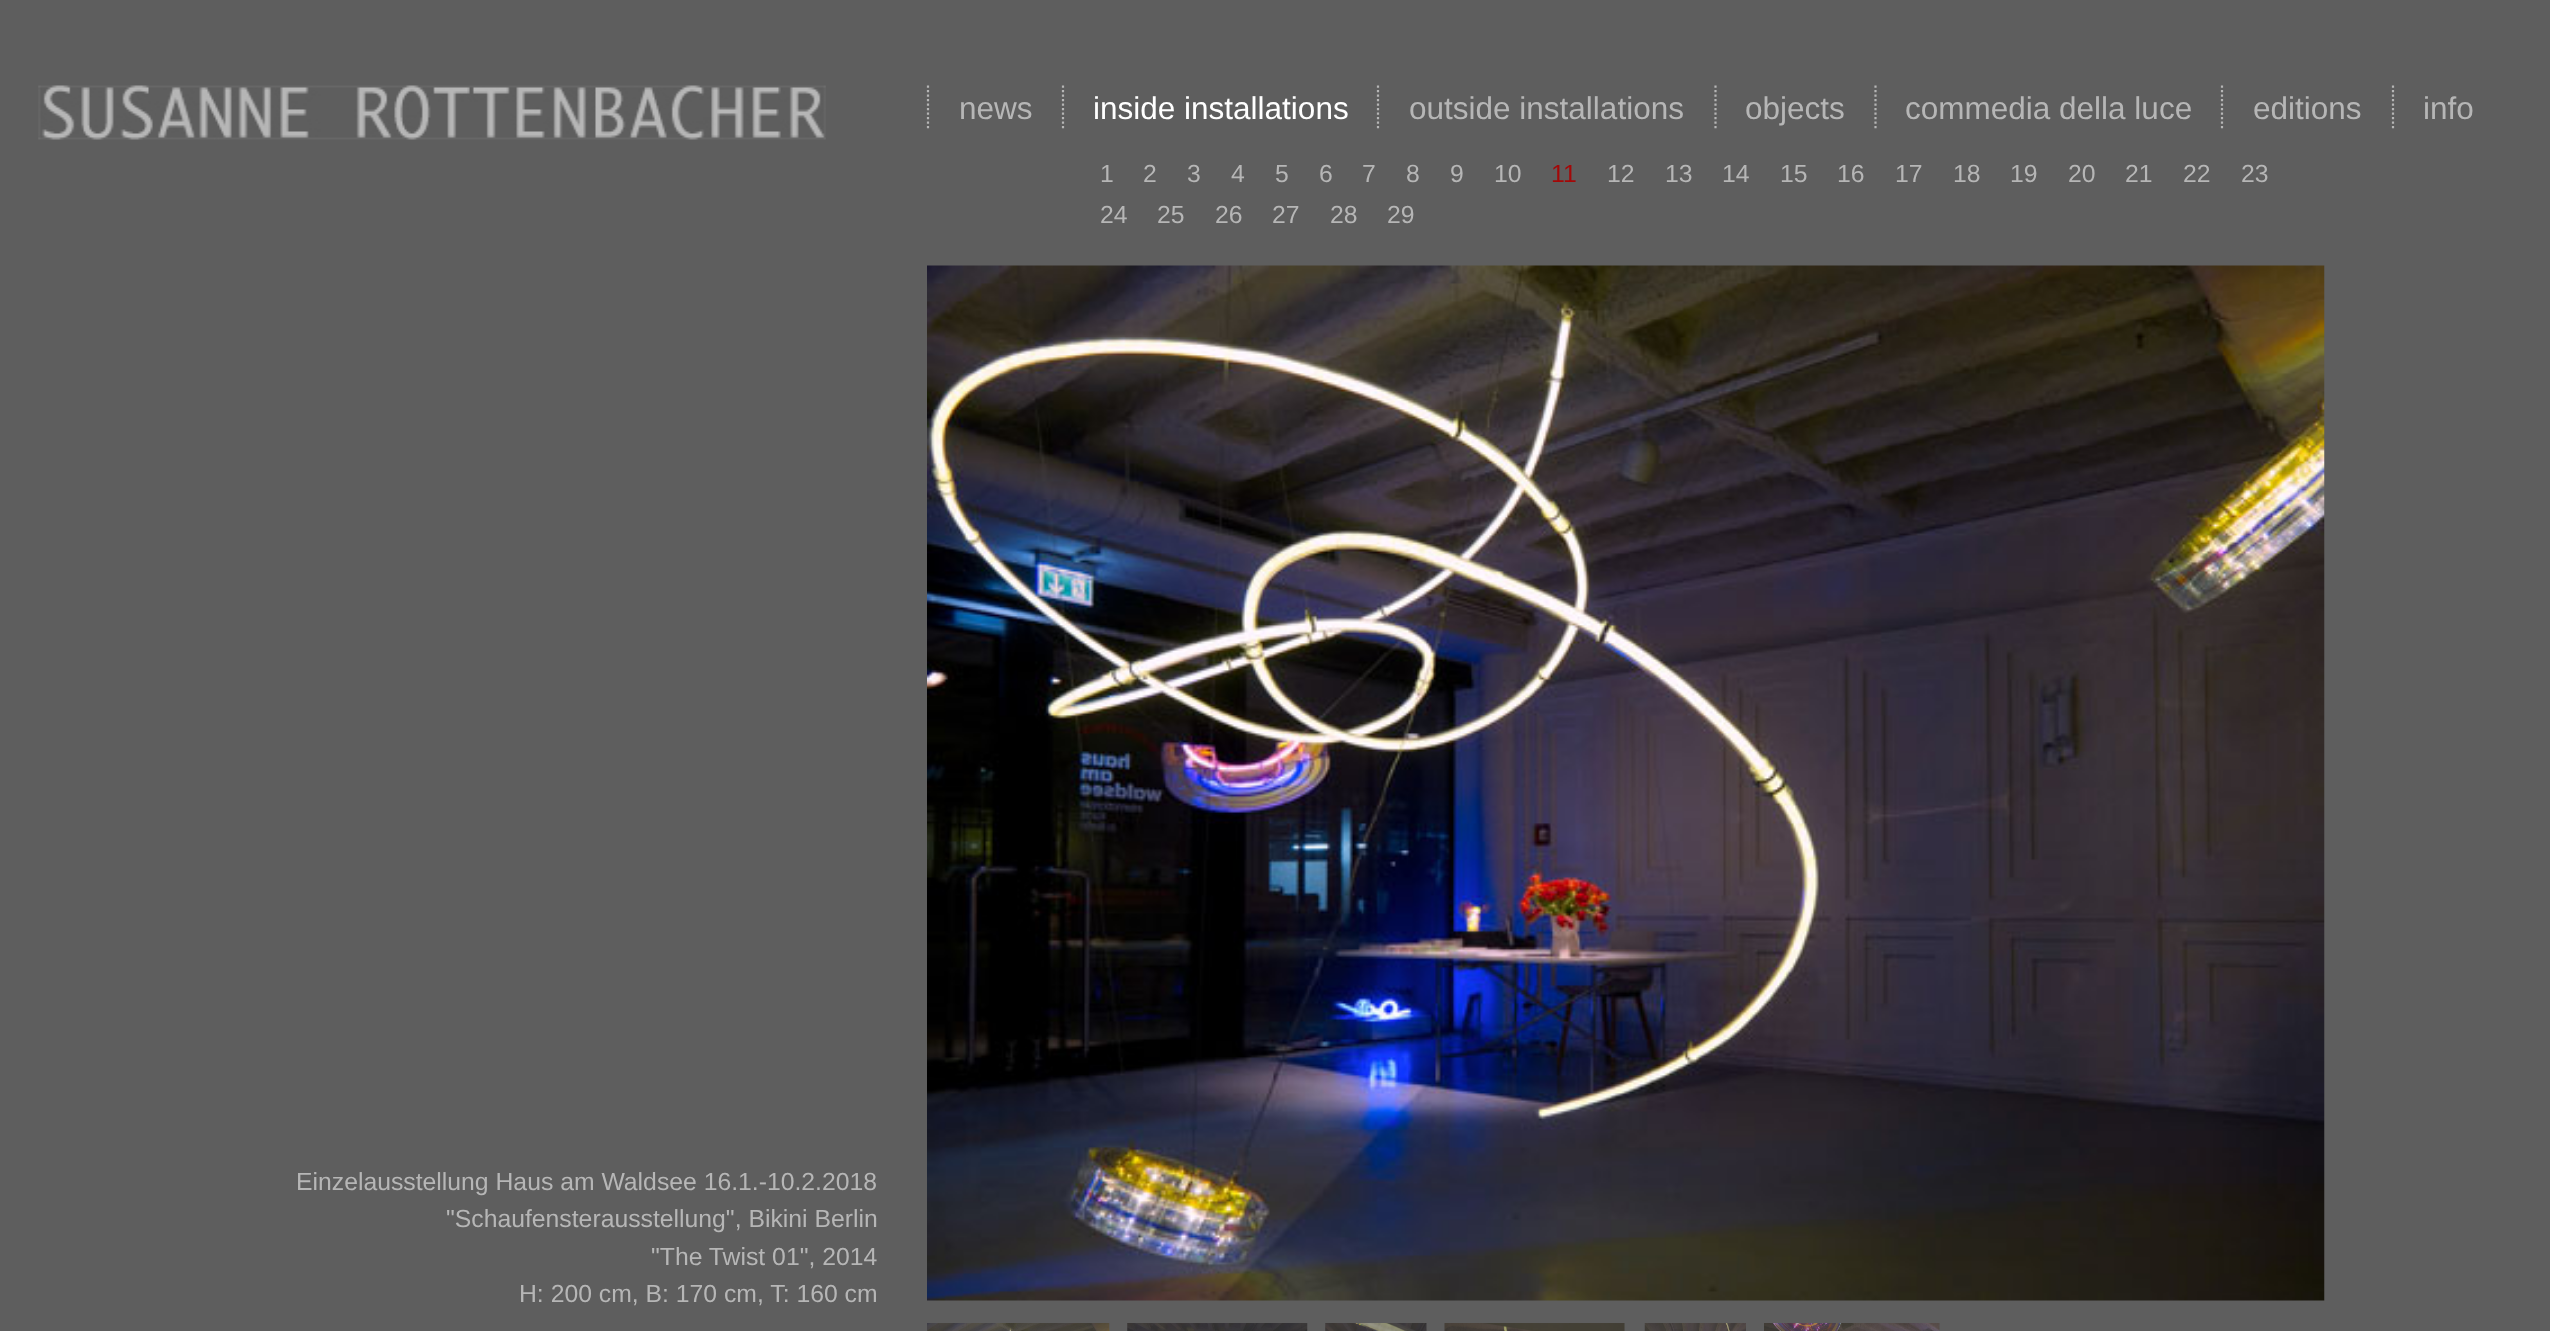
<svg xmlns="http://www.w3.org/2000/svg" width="2550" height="1331">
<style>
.a{font:31.5px Liberation Sans;fill:#fff}
.b{font:24.75px Liberation Sans;fill:#b6b6b6}
.c{font:24.75px Liberation Sans;fill:#a40808}
.d{font:31.5px Liberation Sans;fill:#b6b6b6}
</style>
<rect width="100%" height="100%" fill="#5e5e5e"/>
<image href="1.png" x="38" y="85" width="788" height="55"/>
<path fill="none" stroke="#b6b6b6" stroke-width="2.2" stroke-dasharray="2.25 2.25" d="M1063 85.5v45"/>
<path fill="none" stroke="#b6b6b6" stroke-width="2.2" stroke-dasharray="2.25 2.25" d="M928 85.5v45"/>
<path fill="none" stroke="#b6b6b6" stroke-width="2.2" stroke-dasharray="2.25 2.25" d="M1378 85.5v45"/>
<path fill="none" stroke="#b6b6b6" stroke-width="2.2" stroke-dasharray="2.25 2.25" d="M1715.5 85.5v45"/>
<path fill="none" stroke="#b6b6b6" stroke-width="2.2" stroke-dasharray="2.25 2.25" d="M1875.5 85.5v45"/>
<path fill="none" stroke="#b6b6b6" stroke-width="2.2" stroke-dasharray="2.25 2.25" d="M2222 85.5v45"/>
<path fill="none" stroke="#b6b6b6" stroke-width="2.2" stroke-dasharray="2.25 2.25" d="M2393 85.5v45"/>
<image href="2.png" x="927" y="265" width="1398" height="1036"/>
<image href="3.png" x="927" y="1323" width="183" height="8"/>
<image href="4.png" x="1127" y="1323" width="181" height="8"/>
<image href="5.png" x="1325" y="1323" width="102" height="8"/>
<image href="6.png" x="1444" y="1323" width="181" height="8"/>
<image href="7.png" x="1644" y="1323" width="102" height="8"/>
<image href="8.png" x="1764" y="1323" width="176" height="8"/>
<text class="a" x="1093" y="119">inside installations</text>
<text class="b" x="1100" y="182">1</text>
<text class="b" x="1143" y="182">2</text>
<text class="b" x="1187" y="182">3</text>
<text class="b" x="1231" y="182">4</text>
<text class="b" x="1275" y="182">5</text>
<text class="b" x="1319" y="182">6</text>
<text class="b" x="1362" y="182">7</text>
<text class="b" x="1406" y="182">8</text>
<text class="b" x="1450" y="182">9</text>
<text class="b" x="1494" y="182">10</text>
<text class="c" x="1551" y="182">11</text>
<text class="b" x="1607" y="182">12</text>
<text class="b" x="1665" y="182">13</text>
<text class="b" x="1722" y="182">14</text>
<text class="b" x="1780" y="182">15</text>
<text class="b" x="1837" y="182">16</text>
<text class="b" x="1895" y="182">17</text>
<text class="b" x="1953" y="182">18</text>
<text class="b" x="2010" y="182">19</text>
<text class="b" x="2068" y="182">20</text>
<text class="b" x="2125" y="182">21</text>
<text class="b" x="2183" y="182">22</text>
<text class="b" x="2241" y="182">23</text>
<text class="b" x="1100" y="223">24</text>
<text class="b" x="1157" y="223">25</text>
<text class="b" x="1215" y="223">26</text>
<text class="b" x="1272" y="223">27</text>
<text class="b" x="1330" y="223">28</text>
<text class="b" x="1387" y="223">29</text>
<text class="d" x="959" y="119">news</text>
<text class="d" x="1409" y="119">outside installations</text>
<text class="d" x="1745" y="119">objects</text>
<text class="d" x="1905" y="119">commedia della luce</text>
<text class="d" x="2253" y="119">editions</text>
<text class="d" x="2423" y="119">info</text>
<text class="b" x="296" y="1190">Einzelausstellung Haus am Waldsee 16.1.-10.2.2018</text>
<text class="b" x="446" y="1227">"Schaufensterausstellung", Bikini Berlin</text>
<text class="b" x="651" y="1265">"The Twist 01", 2014</text>
<text class="b" x="519" y="1302">H: 200 cm, B: 170 cm, T: 160 cm</text>
</svg>
